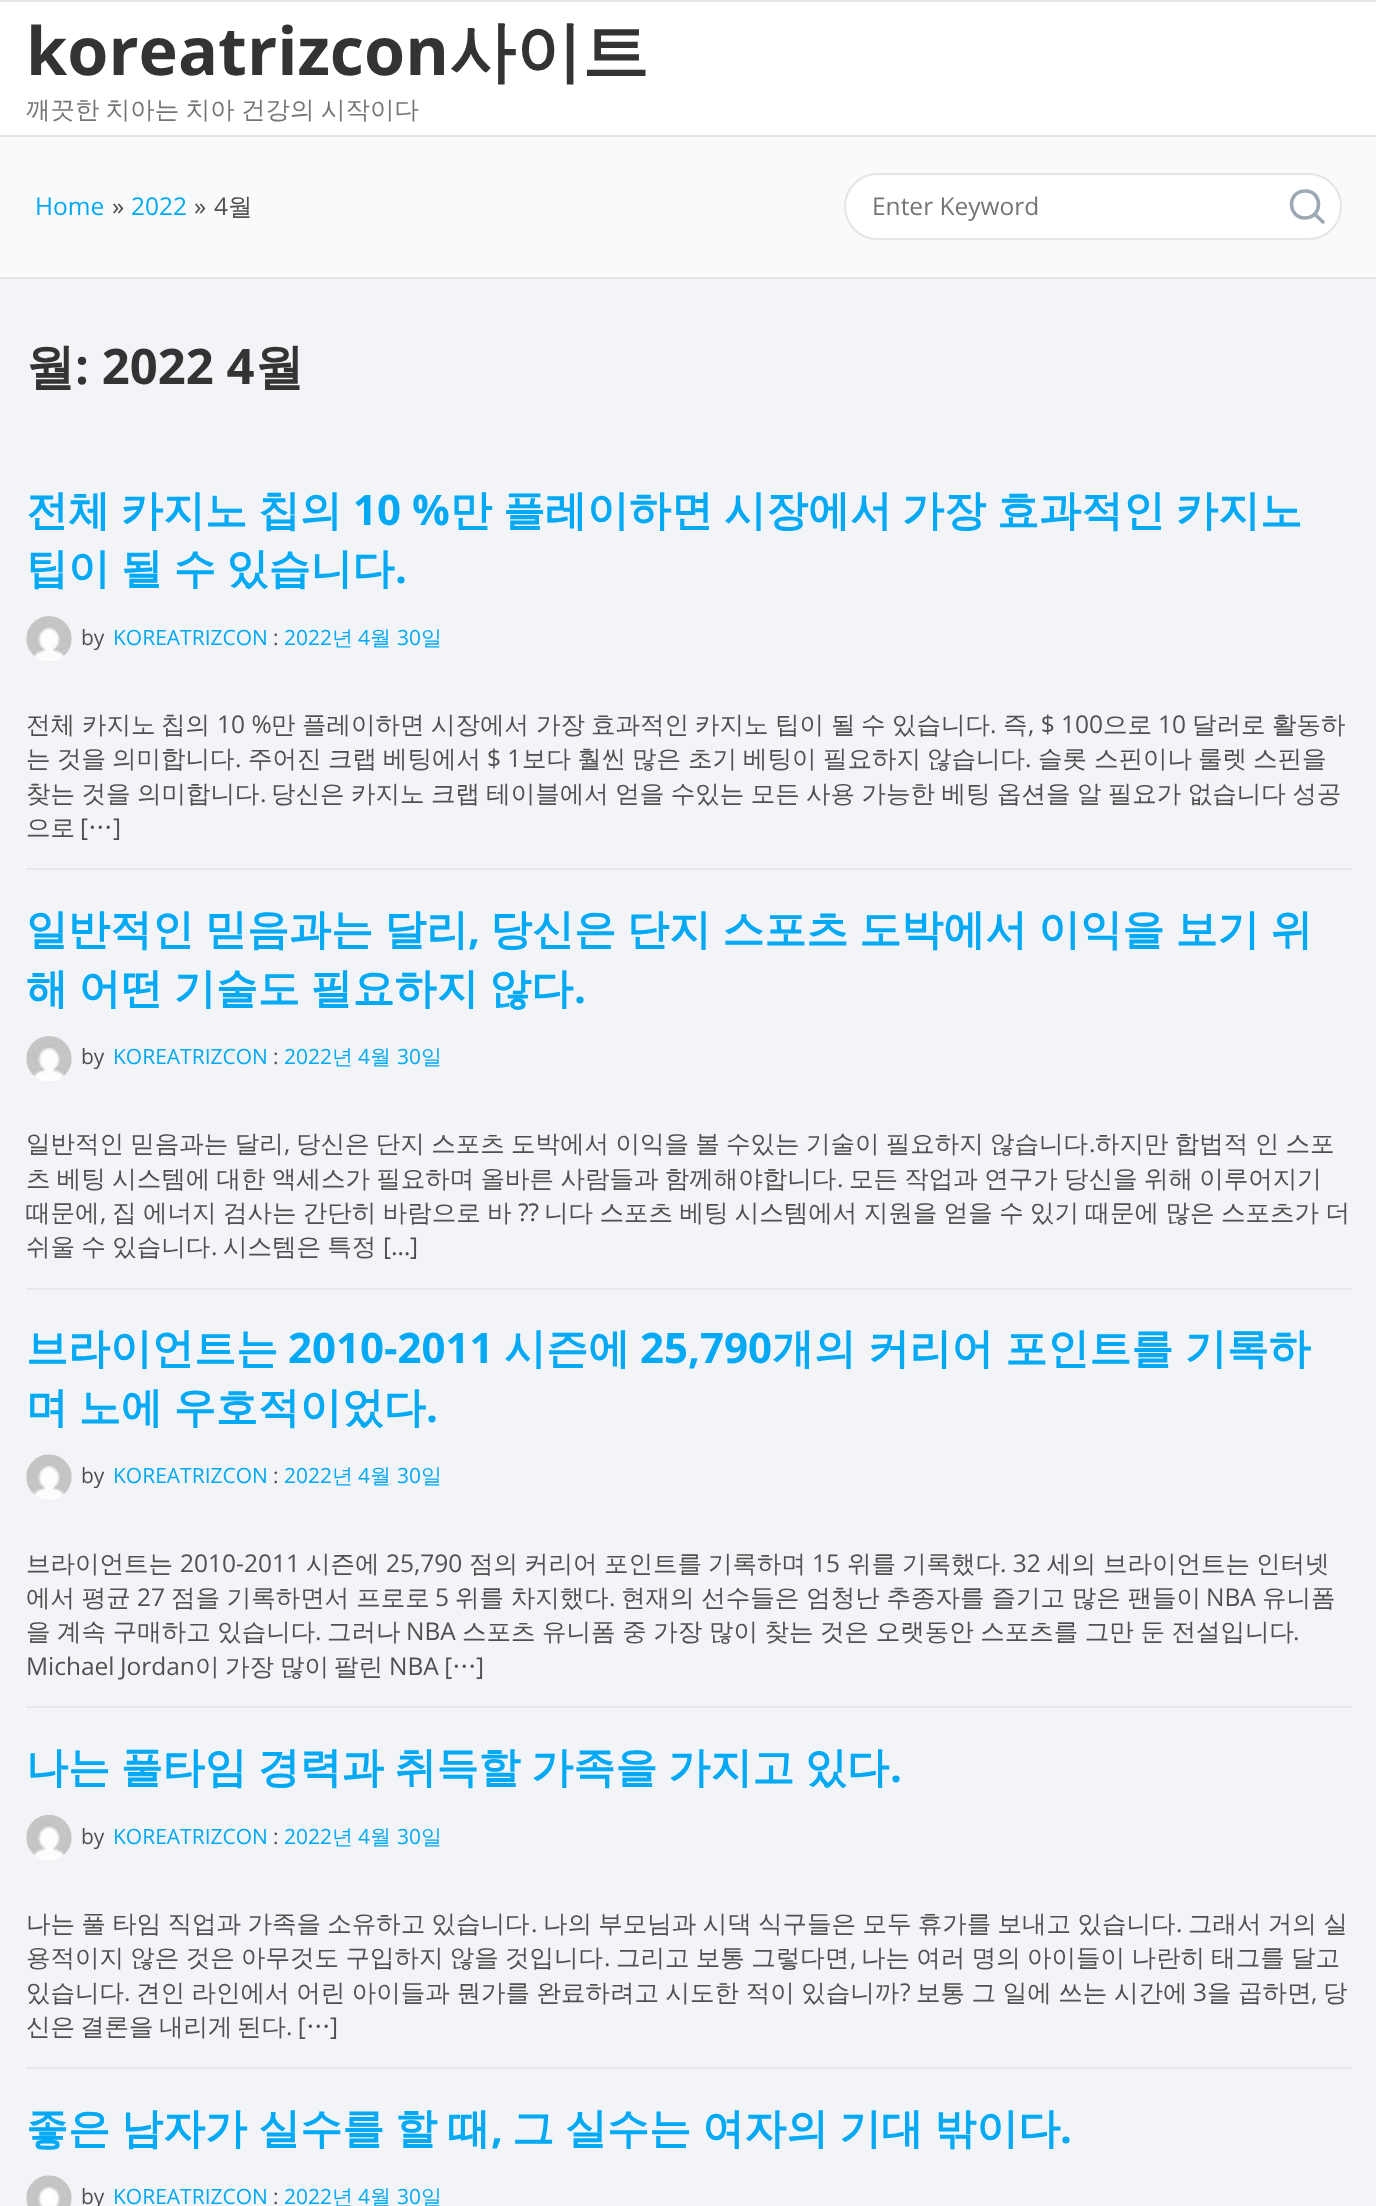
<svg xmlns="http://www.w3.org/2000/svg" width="1376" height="2206">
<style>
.a{font:bold 66.5px Open Sans;fill:#333}
.b{font:bold 66.5px WenQuanYi Zen Hei;fill:#333}
.c{font:500 24.5px WenQuanYi Zen Hei;fill:#757575}
.d{font:24.5px Open Sans;fill:#03a9f4}
.e{font:24.5px Open Sans;fill:#505050}
.f{font:500 24.5px WenQuanYi Zen Hei;fill:#505050}
.g{font:24.5px Open Sans;fill:#757575}
.h{font:bold 49px WenQuanYi Zen Hei;fill:#333}
.i{font:bold 49px Open Sans;fill:#333}
.j{font:bold 42px WenQuanYi Zen Hei;fill:#03a9f4}
.k{font:bold 42px Open Sans;fill:#03a9f4}
.l{font:21px Open Sans;fill:#505050}
.m{font:21px Open Sans;fill:#03a9f4}
.n{font:500 21px WenQuanYi Zen Hei;fill:#03a9f4}
.o{font:24.5px Noto Sans;fill:#505050}
</style>
<rect width="100%" height="100%" fill="#f2f4f7"/>
<path fill="#fff" d="M0 2h1376v133H0z"/>
<path fill="#e5e5e5" d="M0 0h1376v2H0z"/>
<path fill="#e5e5e5" d="M0 135h1376v2H0z"/>
<path fill="#f8fafb" d="M0 137h1376v140H0z"/>
<path fill="#e5e5e5" d="M0 277h1376v2H0z"/>
<rect fill="#fff" stroke="#e5e5e5" stroke-width="2" x="845" y="174" width="496" height="65" rx="32.5"/>
<path fill="none" stroke="#9ca8b4" stroke-width="3.5" stroke-linecap="round" stroke-linejoin="round" d="M1323 222l-8.5-8m-9.5-23c18-.5 18 27 0 27c-18-.5-18-27 0-27z"/>
<image href="1.png" x="26" y="616" width="46" height="45"/>
<path fill="#e8e8e8" d="M26 868h1325v2H26z"/>
<image href="1.png" x="26" y="1036" width="46" height="45"/>
<path fill="#e8e8e8" d="M26 1288h1325v2H26z"/>
<image href="2.png" x="26" y="1454" width="46" height="46"/>
<path fill="#e8e8e8" d="M26 1706h1325v2H26z"/>
<image href="3.png" x="26" y="1815" width="46" height="45"/>
<path fill="#e8e8e8" d="M26 2067h1325v2H26z"/>
<image href="4.png" x="26" y="2175" width="46" height="31"/>
<text class="a" x="26" y="75">koreatrizcon</text>
<text class="b" x="449" y="75">사이트</text>
<text class="c" x="26" y="118" word-spacing="-1">깨끗한 치아는 치아 건강의 시작이다</text>
<text class="d" x="35" y="215">Home</text>
<text class="e" x="112" y="215">»</text>
<text class="d" x="131" y="215">2022</text>
<text class="e" x="194" y="215">»</text>
<text class="e" x="214" y="215">4</text>
<text class="f" x="228" y="215">월</text>
<text class="g" x="872" y="215">Enter Keyword</text>
<text class="h" x="26" y="384">월</text>
<text class="i" x="75" y="384">: 2022 4</text>
<text class="h" x="255" y="384">월</text>
<text class="j" x="26" y="525">전체</text>
<text class="j" x="121" y="525">카지노</text>
<text class="j" x="258" y="525">칩의</text>
<text class="k" x="353" y="525">10 %</text>
<text class="j" x="450" y="525">만</text>
<text class="j" x="503" y="525">플레이하면</text>
<text class="j" x="724" y="525">시장에서</text>
<text class="j" x="902" y="525">가장</text>
<text class="j" x="997" y="525">효과적인</text>
<text class="j" x="1176" y="525">카지노</text>
<text class="j" x="26" y="583" word-spacing="-1.75">팁이 될 수 있습니다</text>
<text class="k" x="395" y="583">.</text>
<text class="l" x="81" y="645">by</text>
<text class="m" x="113" y="645">KOREATRIZCON</text>
<text class="l" x="273" y="645">:</text>
<text class="m" x="284" y="645">2022</text>
<text class="n" x="332" y="645">년</text>
<text class="m" x="358" y="645">4</text>
<text class="n" x="370" y="645">월</text>
<text class="m" x="397" y="645">30</text>
<text class="n" x="421" y="645">일</text>
<text class="f" x="26" y="733">전체</text>
<text class="f" x="82" y="733">카지노</text>
<text class="f" x="161" y="733">칩의</text>
<text class="e" x="217" y="733">10 %</text>
<text class="f" x="271" y="733">만</text>
<text class="f" x="302" y="733">플레이하면</text>
<text class="f" x="431" y="733">시장에서</text>
<text class="f" x="536" y="733">가장</text>
<text class="f" x="591" y="733">효과적인</text>
<text class="f" x="695" y="733">카지노</text>
<text class="f" x="775" y="733">팁이</text>
<text class="f" x="831" y="733">될</text>
<text class="f" x="861" y="733">수</text>
<text class="f" x="892" y="733">있습니다</text>
<text class="e" x="990" y="733">.</text>
<text class="f" x="1003" y="733">즉</text>
<text class="e" x="1028" y="733">, $ 100</text>
<text class="f" x="1103" y="733">으로</text>
<text class="e" x="1158" y="733">10</text>
<text class="f" x="1192" y="733">달러로</text>
<text class="f" x="1272" y="733">활동하</text>
<text class="f" x="26" y="767">는</text>
<text class="f" x="57" y="767">것을</text>
<text class="f" x="112" y="767">의미합니다</text>
<text class="e" x="235" y="767">.</text>
<text class="f" x="248" y="767">주어진</text>
<text class="f" x="328" y="767">크랩</text>
<text class="f" x="383" y="767">베팅에서</text>
<text class="e" x="487" y="767">$ 1</text>
<text class="f" x="522" y="767">보다</text>
<text class="f" x="577" y="767">훨씬</text>
<text class="f" x="632" y="767">많은</text>
<text class="f" x="688" y="767">초기</text>
<text class="f" x="743" y="767">베팅이</text>
<text class="f" x="823" y="767">필요하지</text>
<text class="f" x="927" y="767">않습니다</text>
<text class="e" x="1025" y="767">.</text>
<text class="f" x="1038" y="767">슬롯</text>
<text class="f" x="1094" y="767">스핀이나</text>
<text class="f" x="1198" y="767">룰렛</text>
<text class="f" x="1253" y="767">스핀을</text>
<text class="f" x="26" y="802" word-spacing="-0.9">찾는 것을 의미합니다</text>
<text class="e" x="260" y="802">.</text>
<text class="f" x="271" y="802" word-spacing="-0.9">당신은 카지노 크랩 테이블에서 얻을 수있는 모든 사용 가능한 베팅 옵션을 알 필요가 없습니다 성공</text>
<text class="f" x="26" y="836">으로</text>
<text class="e" x="80" y="836">[</text>
<text class="f" x="88" y="836">…</text>
<text class="e" x="113" y="836">]</text>
<text class="j" x="26" y="944" word-spacing="-1.5">일반적인 믿음과는 달리</text>
<text class="k" x="468" y="944">,</text>
<text class="j" x="490" y="944" word-spacing="-1.5">당신은 단지 스포츠 도박에서 이익을 보기 위</text>
<text class="j" x="26" y="1003" word-spacing="-1.75">해 어떤 기술도 필요하지 않다</text>
<text class="k" x="574" y="1003">.</text>
<text class="l" x="81" y="1064">by</text>
<text class="m" x="113" y="1064">KOREATRIZCON</text>
<text class="l" x="273" y="1064">:</text>
<text class="m" x="284" y="1064">2022</text>
<text class="n" x="332" y="1064">년</text>
<text class="m" x="358" y="1064">4</text>
<text class="n" x="370" y="1064">월</text>
<text class="m" x="397" y="1064">30</text>
<text class="n" x="421" y="1064">일</text>
<text class="f" x="26" y="1152" word-spacing="-1">일반적인 믿음과는 달리</text>
<text class="e" x="284" y="1152">,</text>
<text class="f" x="296" y="1152" word-spacing="-1">당신은 단지 스포츠 도박에서 이익을 볼 수있는 기술이 필요하지 않습니다</text>
<text class="e" x="1089" y="1152">.</text>
<text class="f" x="1095" y="1152" word-spacing="-1">하지만 합법적 인 스포</text>
<text class="f" x="26" y="1187" word-spacing="-1">츠 베팅 시스템에 대한 액세스가 필요하며 올바른 사람들과 함께해야합니다</text>
<text class="e" x="837" y="1187">.</text>
<text class="f" x="849" y="1187" word-spacing="-1">모든 작업과 연구가 당신을 위해 이루어지기</text>
<text class="f" x="26" y="1221">때문에</text>
<text class="e" x="100" y="1221">,</text>
<text class="f" x="112" y="1221" word-spacing="-0.9">집 에너지 검사는 간단히 바람으로 바</text>
<text class="o" x="518" y="1221">⁇</text>
<text class="f" x="544" y="1221" word-spacing="-0.9">니다 스포츠 베팅 시스템에서 지원을 얻을 수 있기 때문에 많은 스포츠가 더</text>
<text class="f" x="26" y="1255" word-spacing="-1">쉬울 수 있습니다</text>
<text class="e" x="211" y="1255">.</text>
<text class="f" x="223" y="1255" word-spacing="-1">시스템은 특정</text>
<text class="e" x="383" y="1255">[</text>
<text class="o" x="391" y="1255">…</text>
<text class="e" x="410" y="1255">]</text>
<text class="j" x="26" y="1363">브라이언트는</text>
<text class="k" x="288" y="1363">2010-2011</text>
<text class="j" x="504" y="1363">시즌에</text>
<text class="k" x="640" y="1363">25,790</text>
<text class="j" x="772" y="1363" word-spacing="-1">개의 커리어 포인트를 기록하</text>
<text class="j" x="26" y="1422" word-spacing="-1.75">며 노에 우호적이었다</text>
<text class="k" x="426" y="1422">.</text>
<text class="l" x="81" y="1483">by</text>
<text class="m" x="113" y="1483">KOREATRIZCON</text>
<text class="l" x="273" y="1483">:</text>
<text class="m" x="284" y="1483">2022</text>
<text class="n" x="332" y="1483">년</text>
<text class="m" x="358" y="1483">4</text>
<text class="n" x="370" y="1483">월</text>
<text class="m" x="397" y="1483">30</text>
<text class="n" x="421" y="1483">일</text>
<text class="f" x="26" y="1572">브라이언트는</text>
<text class="e" x="180" y="1572">2010-2011</text>
<text class="f" x="306" y="1572">시즌에</text>
<text class="e" x="386" y="1572">25,790</text>
<text class="f" x="469" y="1572">점의</text>
<text class="f" x="524" y="1572">커리어</text>
<text class="f" x="604" y="1572">포인트를</text>
<text class="f" x="708" y="1572">기록하며</text>
<text class="e" x="812" y="1572">15</text>
<text class="f" x="847" y="1572">위를</text>
<text class="f" x="902" y="1572">기록했다</text>
<text class="e" x="1000" y="1572">. 32</text>
<text class="f" x="1047" y="1572">세의</text>
<text class="f" x="1103" y="1572">브라이언트는</text>
<text class="f" x="1256" y="1572">인터넷</text>
<text class="f" x="26" y="1606" word-spacing="-0.5">에서 평균</text>
<text class="e" x="137" y="1606">27</text>
<text class="f" x="171" y="1606" word-spacing="-0.5">점을 기록하면서 프로로</text>
<text class="e" x="435" y="1606">5</text>
<text class="f" x="455" y="1606" word-spacing="-0.5">위를 차지했다</text>
<text class="e" x="609" y="1606">.</text>
<text class="f" x="621" y="1606" word-spacing="-0.5">현재의 선수들은 엄청난 추종자를 즐기고 많은 팬들이</text>
<text class="e" x="1206" y="1606">NBA</text>
<text class="f" x="1262" y="1606">유니폼</text>
<text class="f" x="26" y="1640" word-spacing="-0.75">을 계속 구매하고 있습니다</text>
<text class="e" x="315" y="1640">.</text>
<text class="f" x="327" y="1640">그러나</text>
<text class="e" x="406" y="1640">NBA</text>
<text class="f" x="462" y="1640" word-spacing="-0.75">스포츠 유니폼 중 가장 많이 찾는 것은 오랫동안 스포츠를 그만 둔 전설입니다</text>
<text class="e" x="1293" y="1640">.</text>
<text class="e" x="26" y="1675" word-spacing="-1">Michael Jordan</text>
<text class="f" x="195" y="1675">이</text>
<text class="f" x="225" y="1675">가장</text>
<text class="f" x="280" y="1675">많이</text>
<text class="f" x="334" y="1675">팔린</text>
<text class="e" x="389" y="1675" word-spacing="-1">NBA [</text>
<text class="f" x="452" y="1675">…</text>
<text class="e" x="476" y="1675">]</text>
<text class="j" x="26" y="1782" word-spacing="-1.75">나는 풀타임 경력과 취득할 가족을 가지고 있다</text>
<text class="k" x="890" y="1782">.</text>
<text class="l" x="81" y="1844">by</text>
<text class="m" x="113" y="1844">KOREATRIZCON</text>
<text class="l" x="273" y="1844">:</text>
<text class="m" x="284" y="1844">2022</text>
<text class="n" x="332" y="1844">년</text>
<text class="m" x="358" y="1844">4</text>
<text class="n" x="370" y="1844">월</text>
<text class="m" x="397" y="1844">30</text>
<text class="n" x="421" y="1844">일</text>
<text class="f" x="26" y="1932" word-spacing="-1">나는 풀 타임 직업과 가족을 소유하고 있습니다</text>
<text class="e" x="531" y="1932">.</text>
<text class="f" x="543" y="1932" word-spacing="-1">나의 부모님과 시댁 식구들은 모두 휴가를 보내고 있습니다</text>
<text class="e" x="1176" y="1932">.</text>
<text class="f" x="1188" y="1932" word-spacing="-1">그래서 거의 실</text>
<text class="f" x="26" y="1966" word-spacing="-1">용적이지 않은 것은 아무것도 구입하지 않을 것입니다</text>
<text class="e" x="604" y="1966">.</text>
<text class="f" x="616" y="1966" word-spacing="-1">그리고 보통 그렇다면</text>
<text class="e" x="850" y="1966">,</text>
<text class="f" x="861" y="1966" word-spacing="-1">나는 여러 명의 아이들이 나란히 태그를 달고</text>
<text class="f" x="26" y="2001">있습니다</text>
<text class="e" x="124" y="2001">.</text>
<text class="f" x="136" y="2001" word-spacing="-0.75">견인 라인에서 어린 아이들과 뭔가를 완료하려고 시도한 적이 있습니까</text>
<text class="e" x="900" y="2001">?</text>
<text class="f" x="916" y="2001" word-spacing="-0.75">보통 그 일에 쓰는 시간에</text>
<text class="e" x="1193" y="2001">3</text>
<text class="f" x="1207" y="2001" word-spacing="-0.75">을 곱하면</text>
<text class="e" x="1311" y="2001">,</text>
<text class="f" x="1323" y="2001">당</text>
<text class="f" x="26" y="2035">신은</text>
<text class="f" x="80" y="2035">결론을</text>
<text class="f" x="159" y="2035">내리게</text>
<text class="f" x="237" y="2035">된다</text>
<text class="e" x="286" y="2035" word-spacing="-1">. [</text>
<text class="f" x="306" y="2035">…</text>
<text class="e" x="330" y="2035">]</text>
<text class="j" x="26" y="2143" word-spacing="-1.5">좋은 남자가 실수를 할 때</text>
<text class="k" x="491" y="2143">,</text>
<text class="j" x="512" y="2143" word-spacing="-1.5">그 실수는 여자의 기대 밖이다</text>
<text class="k" x="1060" y="2143">.</text>
<text class="l" x="81" y="2204">by</text>
<text class="m" x="113" y="2204">KOREATRIZCON</text>
<text class="l" x="273" y="2204">:</text>
<text class="m" x="284" y="2204">2022</text>
<text class="n" x="332" y="2204">년</text>
<text class="m" x="358" y="2204">4</text>
<text class="n" x="370" y="2204">월</text>
<text class="m" x="397" y="2204">30</text>
<text class="n" x="421" y="2204">일</text>
</svg>
